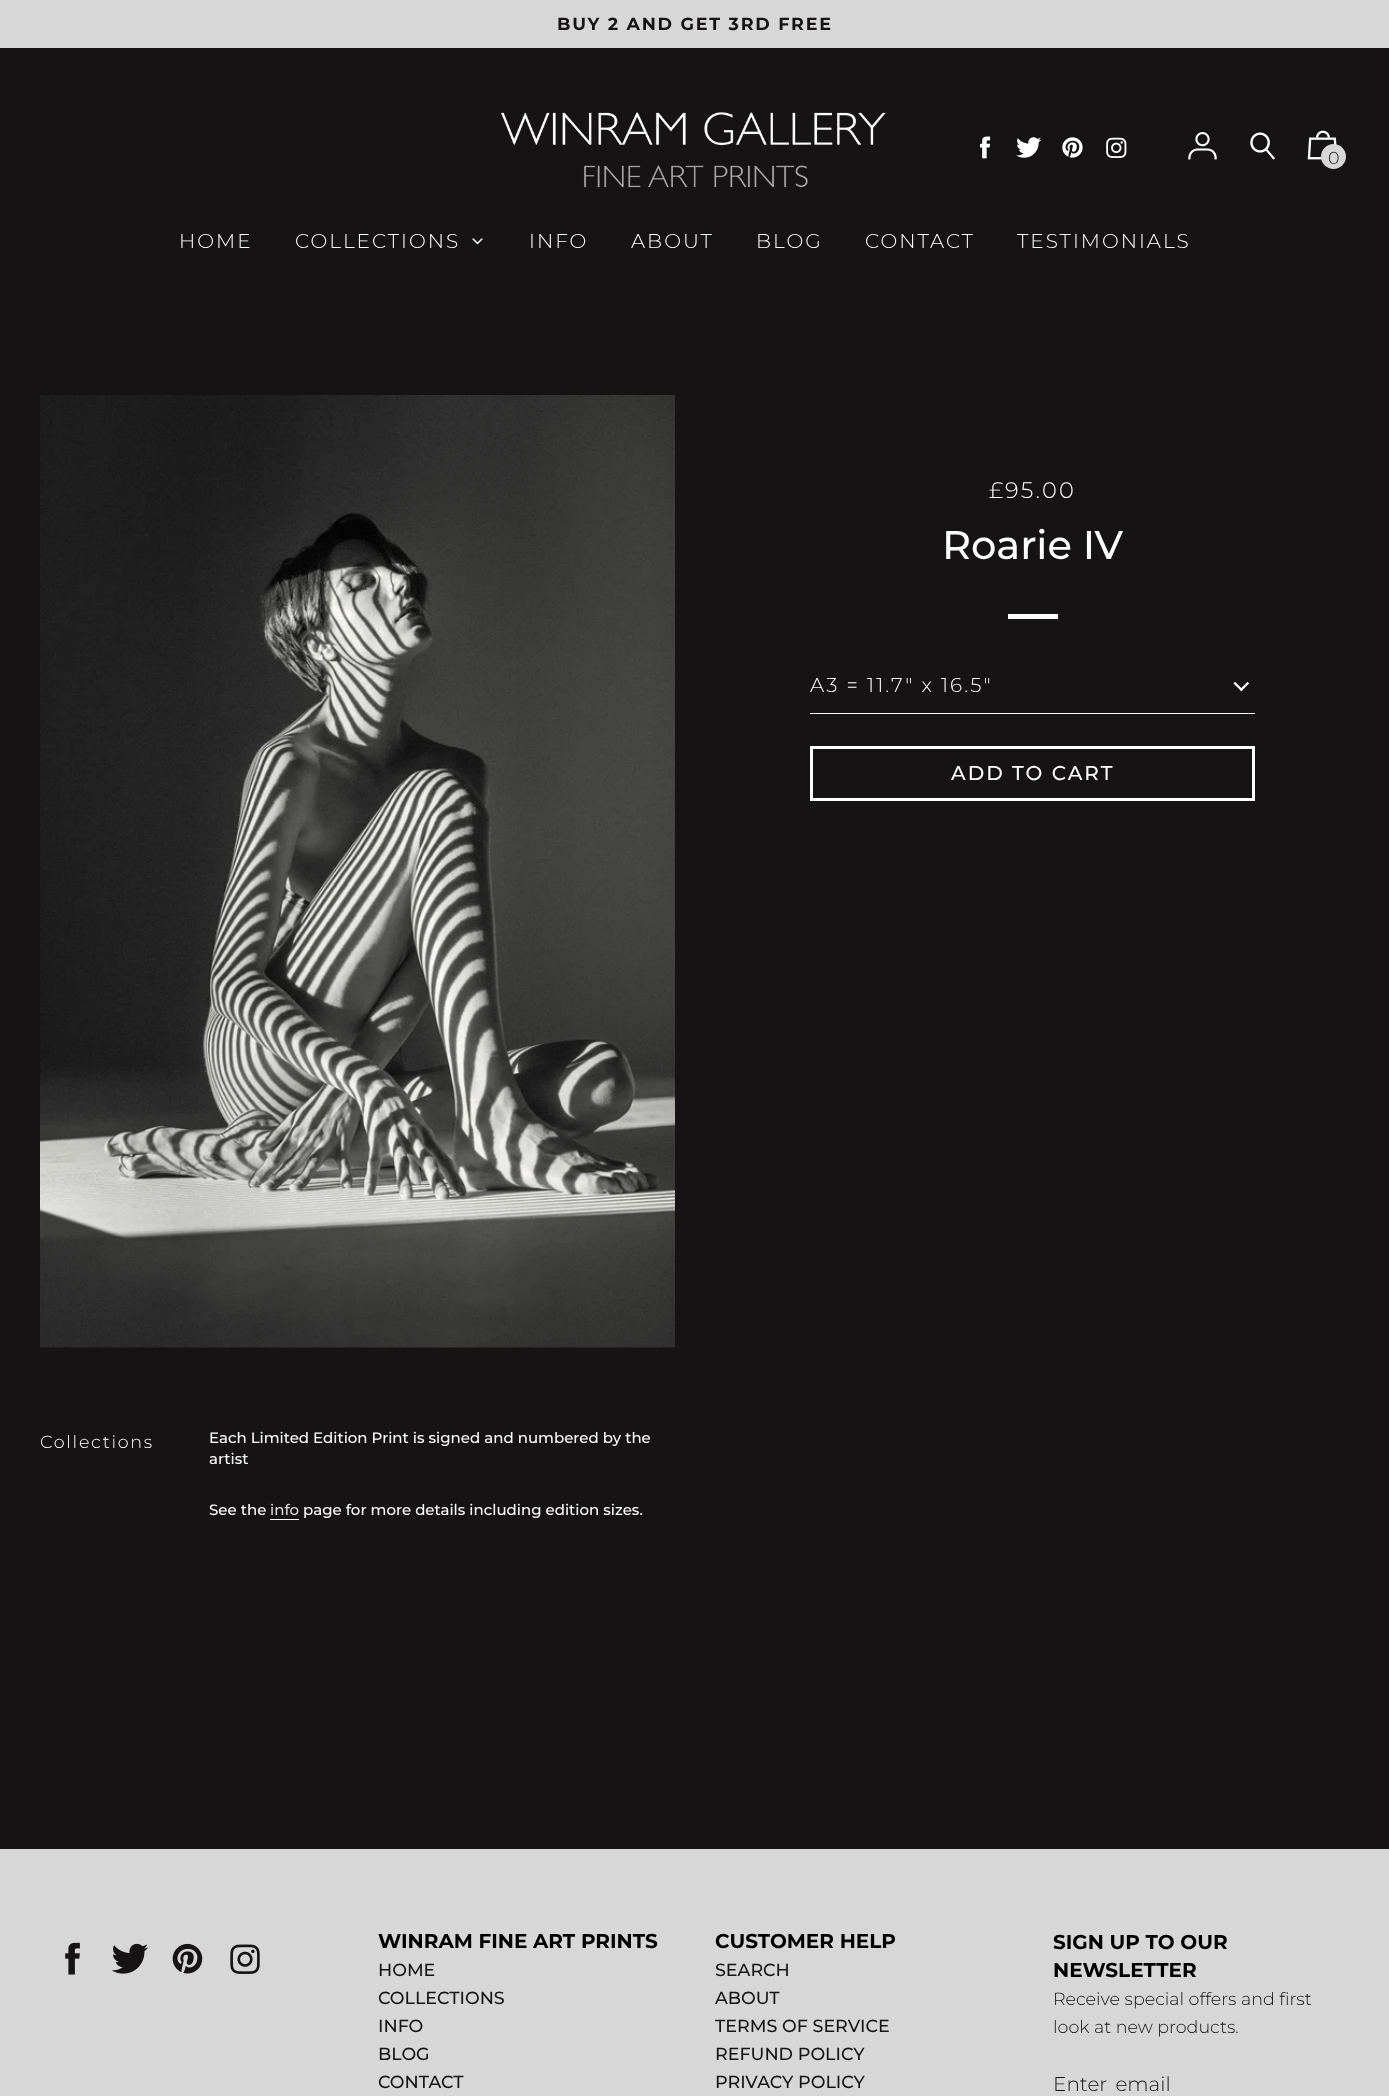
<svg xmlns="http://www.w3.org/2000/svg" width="1389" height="2096">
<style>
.a{font:bold 17.5px Montserrat;letter-spacing:1.75px;fill:#151313}
.b{font:300 17.5px Montserrat;fill:#151313}
.c{font:300 20px Montserrat;letter-spacing:2px;fill:#fff}
.d{font:300 22.5px Montserrat;letter-spacing:2.25px;fill:#fff}
.e{font:500 40px Montserrat;fill:#fff}
.f{font:500 20px Montserrat;letter-spacing:2px;fill:#fff}
.g{font:300 17.5px Montserrat;letter-spacing:1.75px;fill:#fff}
.h{font:500 15px Montserrat;fill:#fff}
.i{font:500 15px Montserrat;fill:#ddd}
.j{font:bold 20px Montserrat;fill:#000}
.k{font:500 17.5px Montserrat;fill:#151313}
.l{font:300 20px Montserrat;fill:#151313}
</style>
<rect width="100%" height="100%" fill="#151313"/>
<path fill="#d7d7d7" d="M0 0h1389v48H0z"/>
<image href="1.png" x="501" y="112" width="385" height="76"/>
<image href="2.png" x="980" y="136" width="11" height="23"/>
<image href="3.png" x="1016" y="137" width="26" height="21"/>
<image href="4.png" x="1062" y="137" width="21" height="21"/>
<image href="5.png" x="1106" y="137" width="21" height="21"/>
<image href="6.png" x="1188" y="132" width="29" height="28"/>
<image href="7.png" x="1250" y="132" width="25" height="28"/>
<image href="8.png" x="1307" y="130" width="30" height="30"/>
<circle fill="#d7d7d7" cx="1333.5" cy="156.5" r="12.5"/>
<image href="9.png" x="472" y="238" width="11" height="7"/>
<image href="10.png" x="40" y="395" width="635" height="953"/>
<path fill="#fff" d="M1008 614h50v5H1008z"/>
<image href="11.png" x="1233" y="681" width="17" height="11"/>
<path fill="#fff" d="M810 713h445v1H810z"/>
<path fill="none" stroke="#fff" stroke-width="3" d="M811.5 747.5h442v52H811.5z"/>
<path fill="#fff" d="M270 1519h29v1H270z"/>
<path fill="#d7d7d7" d="M0 1849h1389v247H0z"/>
<image href="12.png" x="65" y="1942" width="15" height="33"/>
<image href="13.png" x="111" y="1943" width="37" height="31"/>
<image href="14.png" x="172" y="1943" width="31" height="31"/>
<image href="15.png" x="230" y="1944" width="30" height="30"/>
<text class="a" x="557" y="30">BUY 2 AND GET 3RD FREE</text>
<text class="b" x="1328" y="164">0</text>
<text class="c" x="179" y="248">HOME</text>
<text class="c" x="295" y="248">COLLECTIONS</text>
<text class="c" x="529" y="248">INFO</text>
<text class="c" x="631" y="248">ABOUT</text>
<text class="c" x="756" y="248">BLOG</text>
<text class="c" x="865" y="248">CONTACT</text>
<text class="c" x="1017" y="248">TESTIMONIALS</text>
<text class="d" x="989" y="498">£95.00</text>
<text class="e" x="942" y="559">Roarie IV</text>
<text class="c" x="810" y="692">A3 = 11.7" x 16.5"</text>
<text class="f" x="951" y="780">ADD TO CART</text>
<text class="g" x="40" y="1448">Collections</text>
<text class="h" x="209" y="1443">Each Limited Edition Print is signed and numbered by the</text>
<text class="h" x="209" y="1464">artist</text>
<text class="h" x="209" y="1515">See the</text>
<text class="i" x="270" y="1515">info</text>
<text class="h" x="303" y="1515">page for more details including edition sizes.</text>
<text class="j" x="378" y="1948">WINRAM FINE ART PRINTS</text>
<text class="k" x="378" y="1976">HOME</text>
<text class="k" x="378" y="2004">COLLECTIONS</text>
<text class="k" x="378" y="2032">INFO</text>
<text class="k" x="378" y="2060">BLOG</text>
<text class="k" x="378" y="2088">CONTACT</text>
<text class="j" x="715" y="1948">CUSTOMER HELP</text>
<text class="k" x="715" y="1976">SEARCH</text>
<text class="k" x="715" y="2004">ABOUT</text>
<text class="k" x="715" y="2032">TERMS OF SERVICE</text>
<text class="k" x="715" y="2060">REFUND POLICY</text>
<text class="k" x="715" y="2088">PRIVACY POLICY</text>
<text class="j" x="1053" y="1949">SIGN UP TO OUR</text>
<text class="j" x="1053" y="1977">NEWSLETTER</text>
<text class="b" x="1053" y="2005">Receive special offers and first</text>
<text class="b" x="1053" y="2033">look at new products.</text>
<text class="l" x="1053" y="2091" word-spacing="3">Enter email</text>
</svg>
